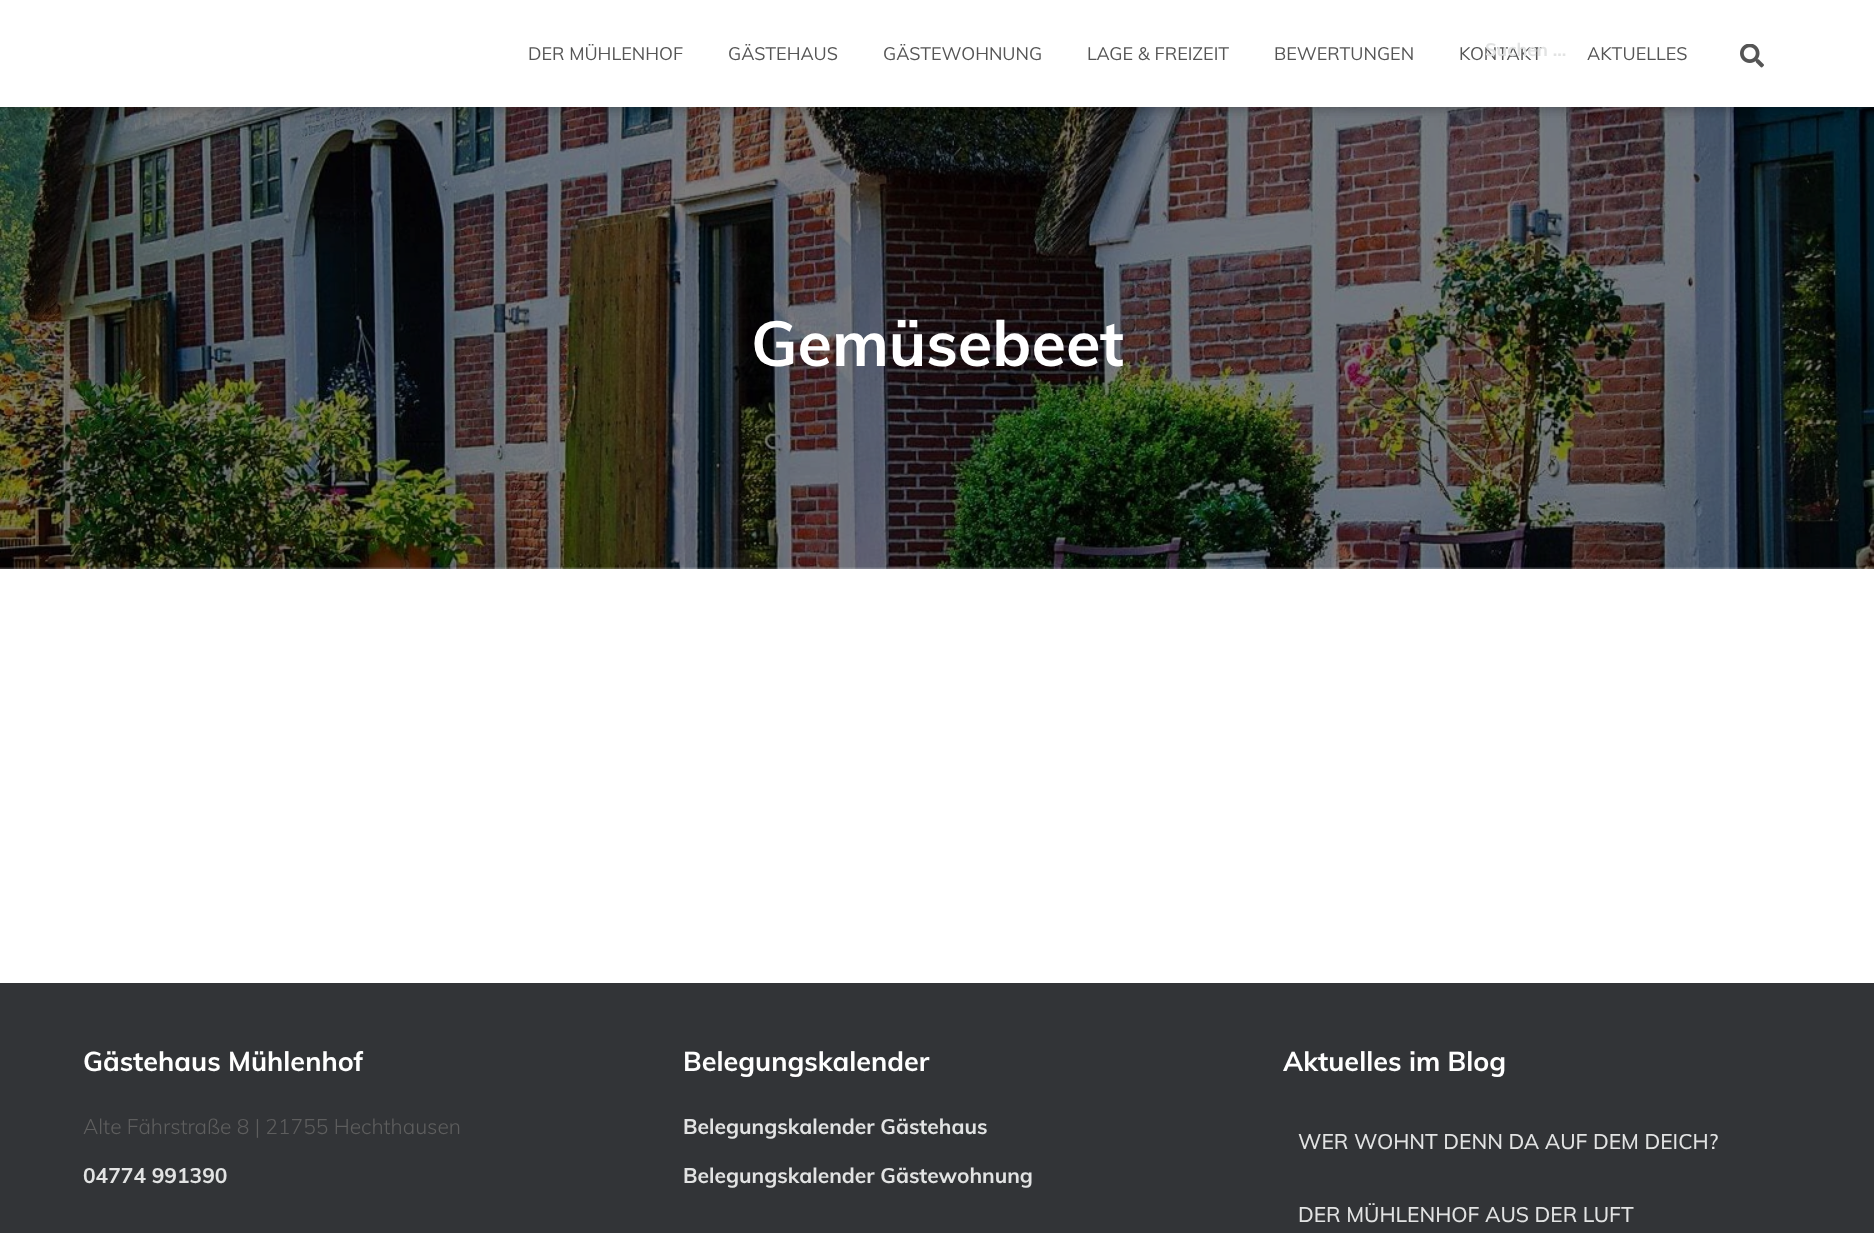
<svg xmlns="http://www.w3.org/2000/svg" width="1874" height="1233">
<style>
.a{font:18px Muli;fill:#555}
.b{font:bold 18px Muli;fill:#e2e3e3}
.c{font:bold 63px Muli;fill:#fff}
.d{font:bold 27px Muli;fill:#fff}
.e{font:300 21px Muli;fill:#5e5e5e}
.f{font:bold 21px Muli;fill:#e2e3e3}
.g{font:500 21px Muli;fill:#e2e3e3}
</style>
<rect width="100%" height="100%" fill="#fff"/>
<image href="2.png" x="0" y="107" width="1874" height="462"/>
<path fill="#0000001a" filter="blur(4px)" d="M3 9h1869v101H3z"/>
<path fill="#0000001f" filter="blur(7.5px)" d="M0 2h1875v106H0z"/>
<path fill="#0000006b" filter="blur(7.5px)" d="M9 11h1857v88H9z"/>
<path fill="#fff" d="M0 0h1874v107H0z"/>
<image href="1.png" x="1740" y="44" width="24" height="24"/>
<path fill="#323437" d="M0 983h1874v250H0z"/>
<text class="a" x="528" y="60">DER MÜHLENHOF</text>
<text class="a" x="728" y="60">GÄSTEHAUS</text>
<text class="a" x="883" y="60">GÄSTEWOHNUNG</text>
<text class="a" x="1087" y="60">LAGE &amp; FREIZEIT</text>
<text class="a" x="1274" y="60">BEWERTUNGEN</text>
<text class="a" x="1459" y="60">KONTAKT</text>
<text class="b" x="1485" y="56">Suchen …</text>
<text class="a" x="1587" y="60">AKTUELLES</text>
<text class="c" x="751" y="366">Gemüsebeet</text>
<text class="d" x="83" y="1071">Gästehaus Mühlenhof</text>
<text class="e" x="83" y="1134">Alte Fährstraße 8 | 21755 Hechthausen</text>
<text class="f" x="83" y="1183">04774 991390</text>
<text class="d" x="683" y="1071">Belegungskalender</text>
<text class="f" x="683" y="1134">Belegungskalender Gästehaus</text>
<text class="f" x="683" y="1183">Belegungskalender Gästewohnung</text>
<text class="d" x="1283" y="1071">Aktuelles im Blog</text>
<text class="g" x="1298" y="1149">WER WOHNT DENN DA AUF DEM DEICH?</text>
<text class="g" x="1298" y="1222">DER MÜHLENHOF AUS DER LUFT</text>
</svg>
